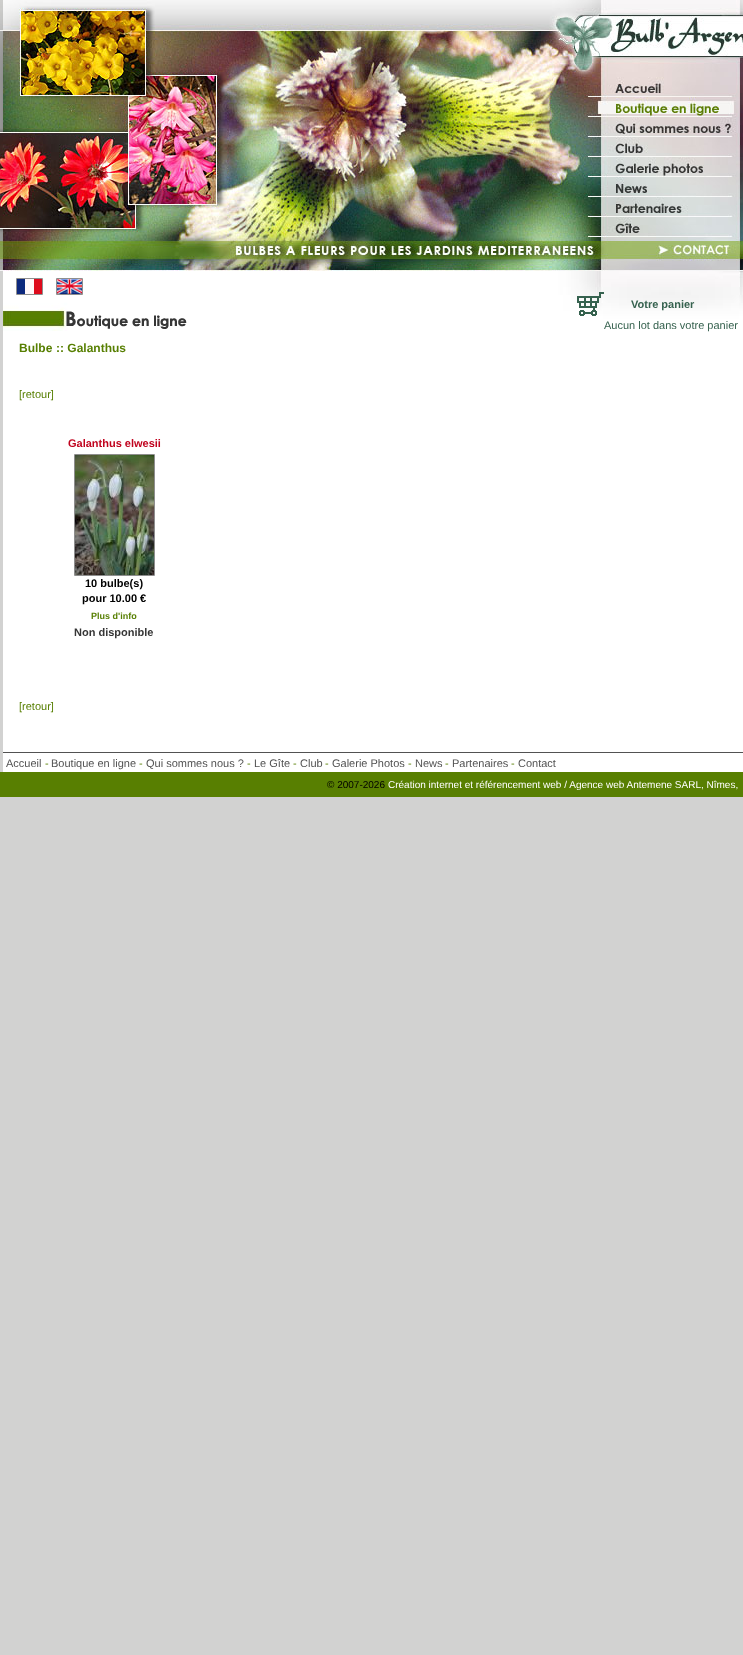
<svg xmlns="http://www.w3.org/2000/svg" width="743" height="1655">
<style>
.a{font:bold 11px Liberation Sans;fill:#36624f}
.b{font:11px Liberation Sans;fill:#36624f}
.c{font:bold 12px Liberation Sans;fill:#577f02}
.d{font:11px Liberation Sans;fill:#577f02}
.e{font:bold 11px Liberation Sans;fill:#c0031e}
.f{font:bold 11px Liberation Sans;fill:#000}
.g{font:bold 9px Liberation Sans;fill:#577f02}
.h{font:bold 11px Liberation Sans;fill:#363636}
.i{font:11px Liberation Sans;fill:#525252}
.j{font:10px Liberation Sans;fill:#000}
.k{font:10px Liberation Sans;fill:#fff}
</style>
<rect width="100%" height="100%" fill="#d2d2d1"/>
<image href="1.png" x="0" y="270" width="3" height="1"/>
<image href="2.png" x="0" y="0" width="3" height="270"/>
<image href="3.png" x="3" y="0" width="226" height="271"/>
<image href="4.png" x="229" y="0" width="323" height="271"/>
<image href="5.png" x="552" y="0" width="191" height="77"/>
<image href="6.png" x="552" y="77" width="191" height="20"/>
<image href="7.png" x="552" y="97" width="191" height="20"/>
<image href="8.png" x="552" y="117" width="191" height="20"/>
<image href="9.png" x="552" y="137" width="191" height="20"/>
<image href="10.png" x="552" y="157" width="191" height="20"/>
<image href="11.png" x="552" y="177" width="191" height="20"/>
<image href="12.png" x="552" y="197" width="191" height="20"/>
<image href="13.png" x="552" y="217" width="191" height="20"/>
<image href="14.png" x="552" y="237" width="191" height="34"/>
<path fill="#fff" d="M3 331h740v441H3z"/>
<image href="15.png" x="3" y="271" width="740" height="60"/>
<path fill="none" stroke="#8e8e8e" d="M16.5 278.5h26v16H16.5z"/>
<image href="16.png" x="17" y="279" width="25" height="15"/>
<path fill="none" stroke="#8e8e8e" d="M56.5 278.5h26v16H56.5z"/>
<image href="17.png" x="57" y="279" width="25" height="15"/>
<image href="18.png" x="66" y="311" width="121" height="18"/>
<image href="19.png" x="577" y="292" width="27" height="24"/>
<path fill="none" stroke="#8e8e8e" d="M74.5 454.5h80v121H74.5z"/>
<image href="20.png" x="75" y="455" width="79" height="120"/>
<path fill="#525252" d="M3 752h740v1H3z"/>
<path fill="#587f01" d="M0 772h743v25H0z"/>
<text class="a" x="631" y="308">Votre panier</text>
<text class="b" x="604" y="329">Aucun lot dans votre panier</text>
<text class="c" x="19" y="352">Bulbe</text>
<text class="c" x="56" y="352">:: Galanthus</text>
<text class="d" x="19" y="398">[retour]</text>
<text class="e" x="68" y="447">Galanthus elwesii</text>
<text class="f" x="85" y="587">10 bulbe(s)</text>
<text class="f" x="82" y="602">pour 10.00 €</text>
<text class="g" x="91" y="619">Plus d'info</text>
<text class="h" x="74" y="636">Non disponible</text>
<text class="d" x="19" y="710">[retour]</text>
<text class="i" x="6" y="767">Accueil</text>
<text class="d" x="45" y="767">-</text>
<text class="i" x="51" y="767">Boutique en ligne</text>
<text class="d" x="139" y="767">-</text>
<text class="i" x="146" y="767">Qui sommes nous ?</text>
<text class="d" x="247" y="767">-</text>
<text class="i" x="254" y="767">Le Gîte</text>
<text class="d" x="293" y="767">-</text>
<text class="i" x="300" y="767">Club</text>
<text class="d" x="325" y="767">-</text>
<text class="i" x="332" y="767">Galerie Photos</text>
<text class="d" x="408" y="767">-</text>
<text class="i" x="415" y="767">News</text>
<text class="d" x="445" y="767">-</text>
<text class="i" x="452" y="767">Partenaires</text>
<text class="d" x="511" y="767">-</text>
<text class="i" x="518" y="767">Contact</text>
<text class="j" x="327" y="788">© 2007-2026</text>
<text class="k" x="388" y="788">Création internet et référencement web / Agence web Antemene SARL, Nîmes,</text>
</svg>
